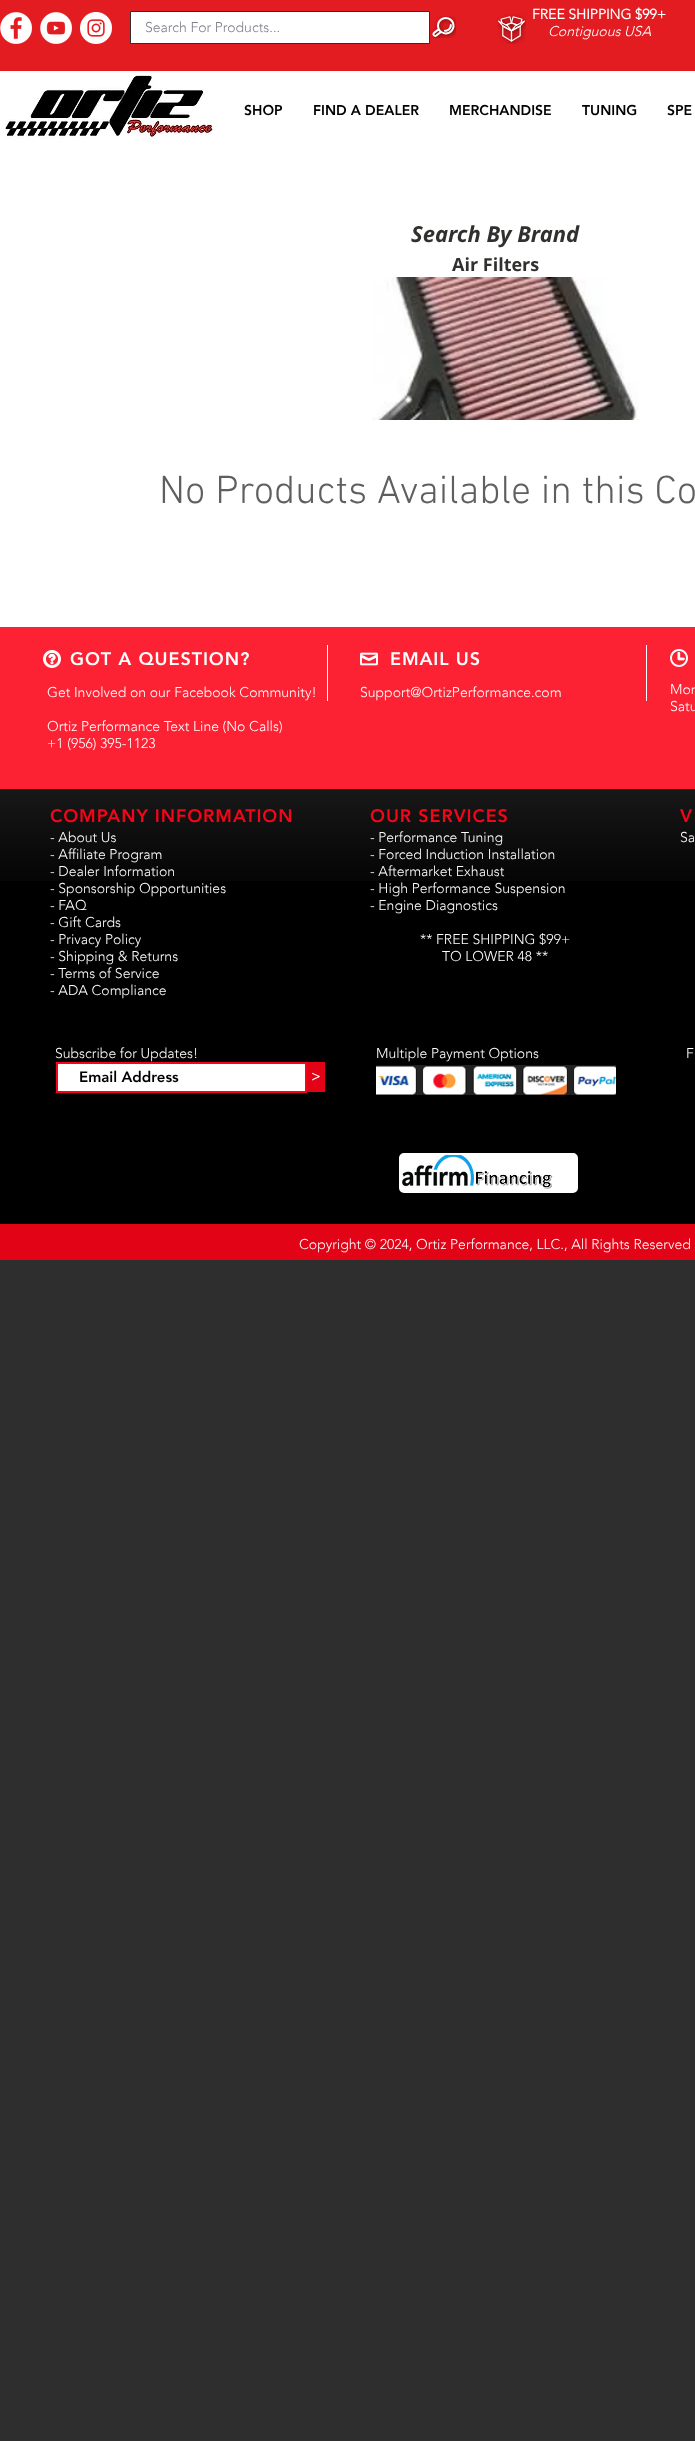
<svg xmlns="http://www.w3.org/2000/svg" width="695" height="2441">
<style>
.a{font:300 14px 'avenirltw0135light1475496';fill:#7f808a}
.b{font:bold 14px 'avenirltw0135light1475496';fill:#fff}
.c{font:italic 300 14px 'avenirltw0135light1475496';fill:#fff}
.d{font:900 14px 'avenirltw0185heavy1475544';fill:#000}
.e{font:italic bold 22px Open Sans;fill:#30302e}
.f{font:bold 18px Open Sans;fill:#30302e}
.g{font:300 40px 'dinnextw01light';fill:#605e5e}
.h{font:900 18px 'avenirltw0185heavy1475544';letter-spacing:0.9px;fill:#fff}
.i{font:300 14px 'avenirltw0135light1475496';fill:#fff}
.j{font:900 18px 'avenirltw0185heavy1475544';letter-spacing:0.9px;fill:#f60419}
.k{font:900 15px 'avenirltw0185heavy1475544';fill:#000}
</style>
<rect width="100%" height="100%" fill="#2f2e2e"/>
<path fill="#e21c21" d="M0 0h695v71H0z"/>
<image href="1.png" x="0" y="12" width="32" height="32"/>
<image href="2.png" x="40" y="12" width="32" height="32"/>
<image href="3.png" x="80" y="12" width="32" height="32"/>
<path fill="#fff" stroke="#2f2e2e" d="M130.5 11.5h299v32H130.5z"/>
<image href="4.png" x="431" y="16" width="25" height="22"/>
<image href="5.png" x="497" y="14" width="29" height="30"/>
<path fill="#fff" d="M0 71h695v556H0z"/>
<image href="6.png" x="5" y="75" width="212" height="64"/>
<image href="7.png" x="372" y="277" width="267" height="143"/>
<path fill="#fc2234" d="M0 627h695v162H0z"/>
<image href="8.png" x="43" y="650" width="18" height="18"/>
<path fill="#fff" d="M327 645h1v56H327z"/>
<image href="9.png" x="360" y="652" width="18" height="14"/>
<path fill="#fff" d="M646 645h1v56H646z"/>
<image href="10.png" x="670" y="649" width="18" height="18"/>
<path fill="#000" d="M0 789h695v435H0z"/>
<path fill="#fff" stroke="#f60419" stroke-width="2" d="M57 1063h249v29H57z"/>
<path fill="#e20316" d="M307 1062h18v30H307z"/>
<image href="11.png" x="376" y="1065" width="240" height="30"/>
<rect fill="#fff" stroke="#fff" stroke-width="2" x="400" y="1154" width="177" height="38" rx="4"/>
<image href="12.png" x="402" y="1155" width="151" height="34"/>
<path fill="#e20316" d="M0 1224h695v36H0z"/>
<image href="13.png" x="0" y="789" width="695" height="92"/>
<text class="a" x="145" y="32">Search For Products...</text>
<text class="b" x="532" y="19">FREE SHIPPING $99+</text>
<text class="c" x="548" y="36">Contiguous USA</text>
<text class="d" x="244" y="115">SHOP</text>
<text class="d" x="313" y="115">FIND A DEALER</text>
<text class="d" x="449" y="115">MERCHANDISE</text>
<text class="d" x="582" y="115">TUNING</text>
<text class="d" x="667" y="115">SPE</text>
<text class="e" x="411" y="242">Search By Brand</text>
<text class="f" x="452" y="271">Air Filters</text>
<text class="g" x="159" y="503">No Products Available in this Co</text>
<text class="h" x="70" y="665">GOT A QUESTION?</text>
<text class="h" x="390" y="665">EMAIL US</text>
<text class="i" x="47" y="697">Get Involved on our Facebook Community!</text>
<text class="i" x="47" y="731">Ortiz Performance Text Line (No Calls)</text>
<text class="i" x="47" y="748">+1 (956) 395-1123</text>
<text class="i" x="360" y="697">Support@OrtizPerformance.com</text>
<text class="i" x="670" y="694">Mon</text>
<text class="i" x="670" y="711">Satu</text>
<text class="j" x="50" y="822">COMPANY INFORMATION</text>
<text class="j" x="370" y="822">OUR SERVICES</text>
<text class="j" x="680" y="822">V</text>
<text class="i" x="50" y="842">- About Us</text>
<text class="i" x="50" y="859">- Affiliate Program</text>
<text class="i" x="50" y="876">- Dealer Information</text>
<text class="i" x="50" y="893">- Sponsorship Opportunities</text>
<text class="i" x="50" y="910">- FAQ</text>
<text class="i" x="50" y="927">- Gift Cards</text>
<text class="i" x="50" y="944">- Privacy Policy</text>
<text class="i" x="50" y="961">- Shipping &amp; Returns</text>
<text class="i" x="50" y="978">- Terms of Service</text>
<text class="i" x="50" y="995">- ADA Compliance</text>
<text class="i" x="370" y="842">- Performance Tuning</text>
<text class="i" x="370" y="859">- Forced Induction Installation</text>
<text class="i" x="370" y="876">- Aftermarket Exhaust</text>
<text class="i" x="370" y="893">- High Performance Suspension</text>
<text class="i" x="370" y="910">- Engine Diagnostics</text>
<text class="i" x="420" y="944">** FREE SHIPPING $99+</text>
<text class="i" x="442" y="961">TO LOWER 48 **</text>
<text class="i" x="680" y="842">Sa</text>
<text class="i" x="55" y="1058">Subscribe for Updates!</text>
<text class="k" x="79" y="1082">Email Address</text>
<text class="b" x="311" y="1081">&gt;</text>
<text class="i" x="376" y="1058">Multiple Payment Options</text>
<text class="i" x="686" y="1058">F</text>
<text class="i" x="299" y="1249">Copyright © 2024, Ortiz Performance, LLC., All Rights Reserved</text>
</svg>
